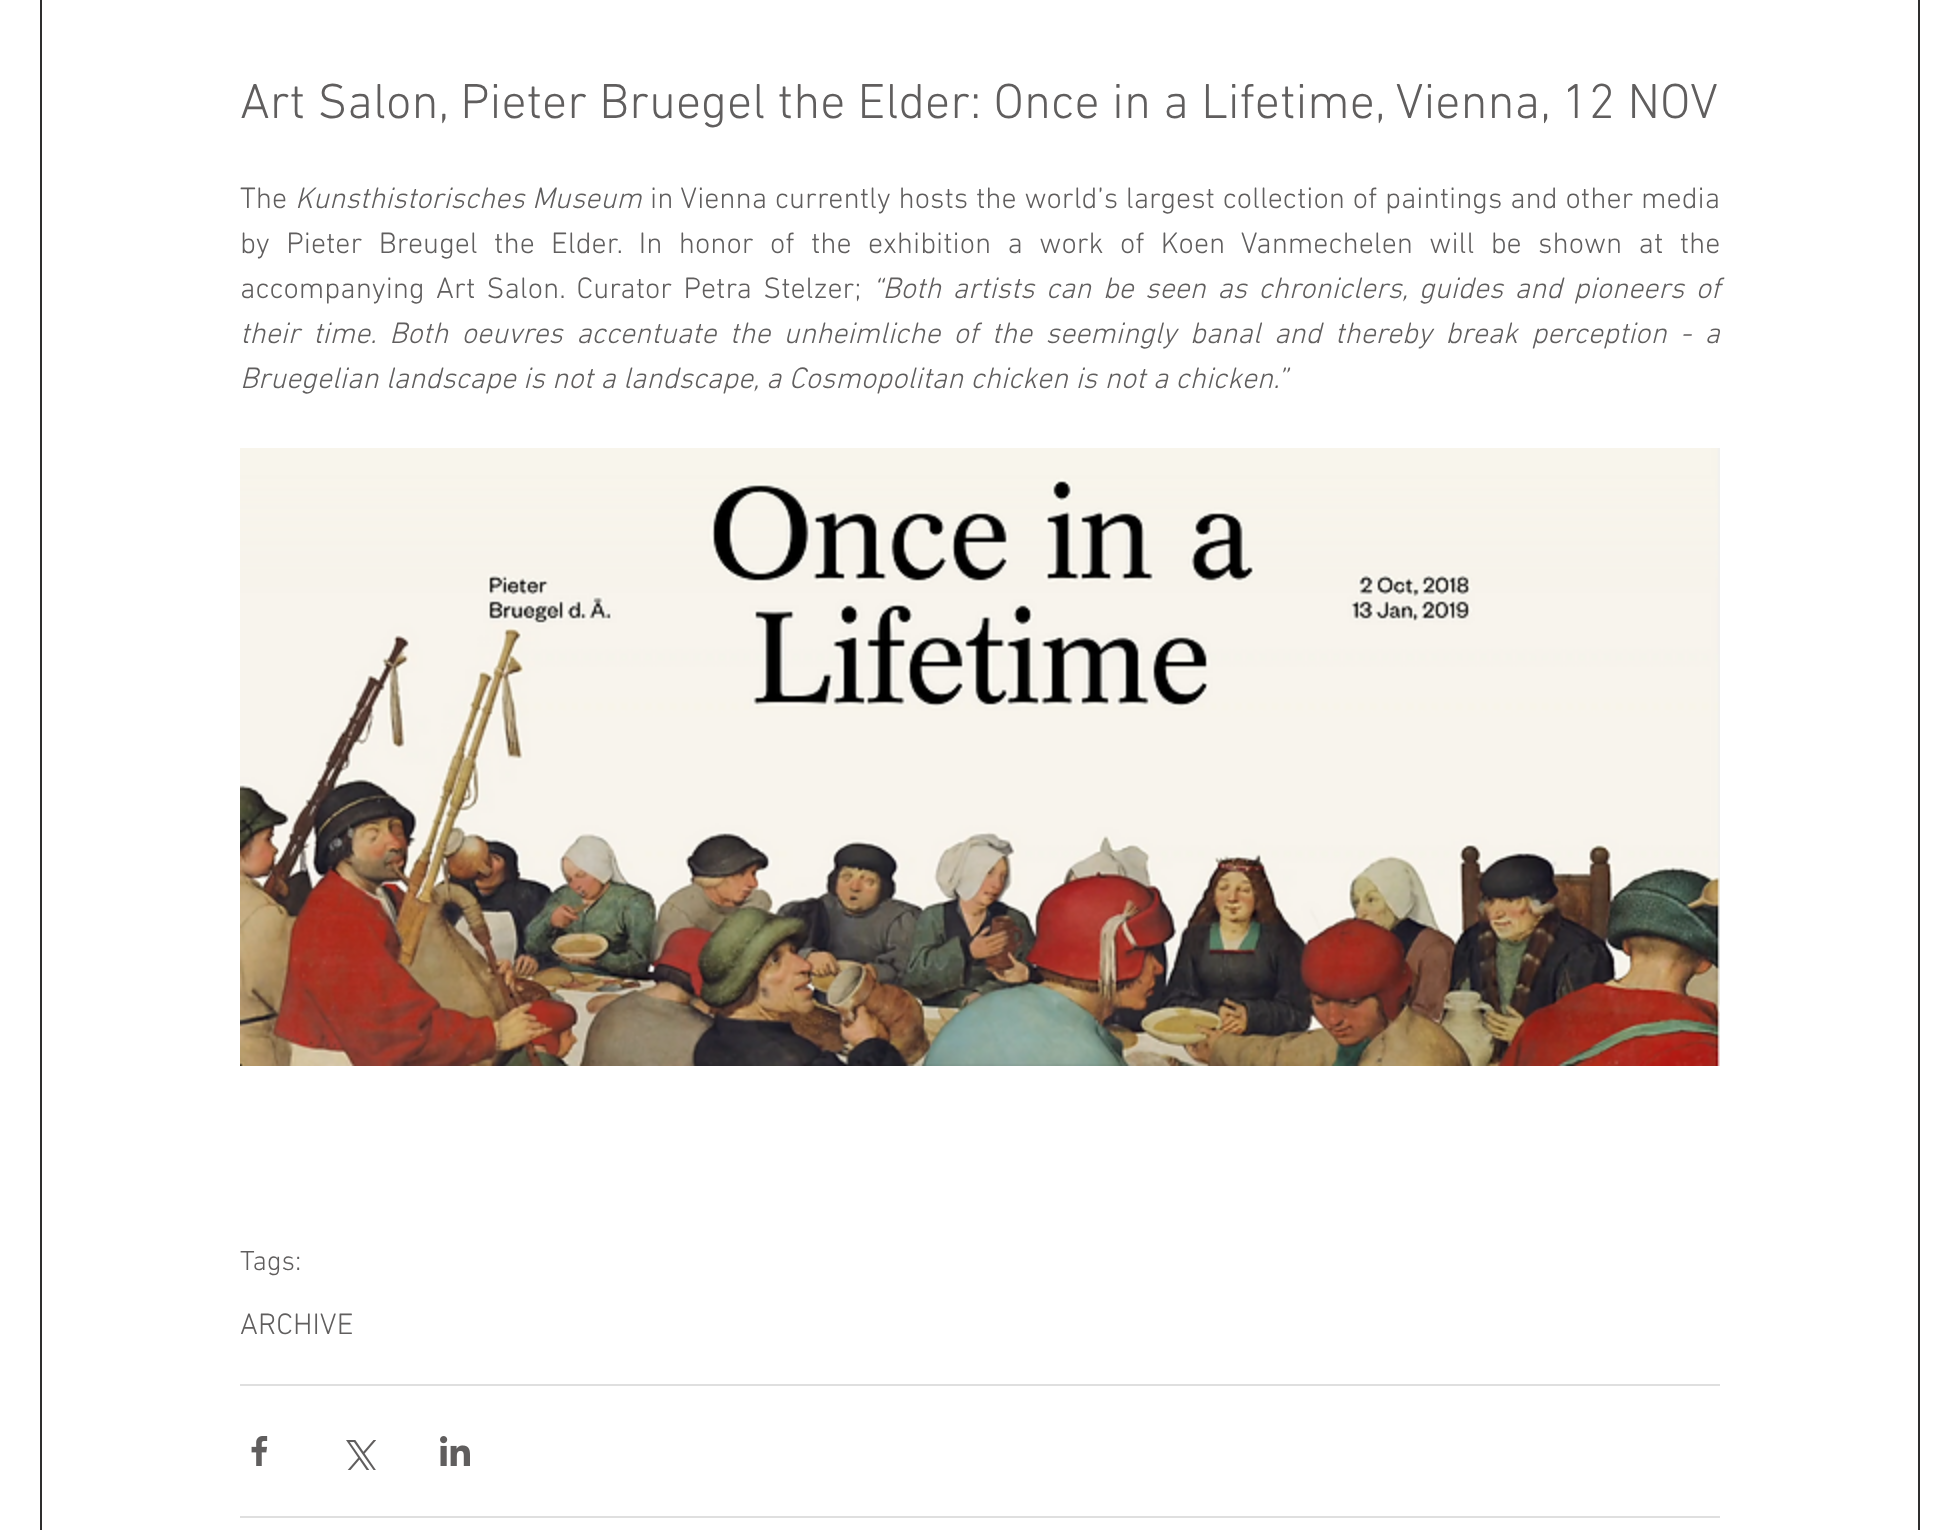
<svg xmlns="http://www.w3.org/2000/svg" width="1933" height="1530">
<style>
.a{font:300 50px 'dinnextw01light';fill:#605e5e}
.b{font:300 30px 'dinnextw01light';fill:#605e5e}
.c{font:italic 300 30px 'dinnextw01light';fill:#605e5e}
.d{font:300 28px 'dinnextw01light';fill:#605e5e}
</style>
<rect width="100%" height="100%" fill="#fff"/>
<path fill="none" stroke="#2f2e2e" stroke-width="2" d="M41 -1h1878v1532H41z"/>
<image href="1.png" x="240" y="448" width="1480" height="618"/>
<path fill="#dfdfdf" d="M240 1384h1480v2H240z"/>
<image href="2.png" x="251" y="1436" width="17" height="30"/>
<image href="3.png" x="346" y="1440" width="30" height="30"/>
<image href="4.png" x="440" y="1436" width="30" height="30"/>
<path fill="#dfdfdf" d="M240 1516h1480v2H240z"/>
<text class="a" x="240" y="118">Art Salon, Pieter Bruegel the Elder: Once in a Lifetime, Vienna, 12 NOV</text>
<text class="b" x="240" y="208">The</text>
<text class="c" x="295" y="208">Kunsthistorisches Museum</text>
<text class="b" x="650" y="208" word-spacing="0.4">in Vienna currently hosts the world’s largest collection of paintings and other media</text>
<text class="b" x="240" y="253" word-spacing="9">by Pieter Breugel the Elder. In honor of the exhibition a work of Koen Vanmechelen will be shown at the</text>
<text class="b" x="240" y="298" word-spacing="4">accompanying Art Salon. Curator Petra Stelzer;</text>
<text class="c" x="872" y="298" word-spacing="4">“Both artists can be seen as chroniclers, guides and pioneers of</text>
<text class="c" x="240" y="343" word-spacing="6">their time. Both oeuvres accentuate the unheimliche of the seemingly banal and thereby break perception - a</text>
<text class="c" x="240" y="388">Bruegelian landscape is not a landscape, a Cosmopolitan chicken is not a chicken.”</text>
<text class="d" x="240" y="1270">Tags:</text>
<text class="b" x="240" y="1334">ARCHIVE</text>
</svg>
